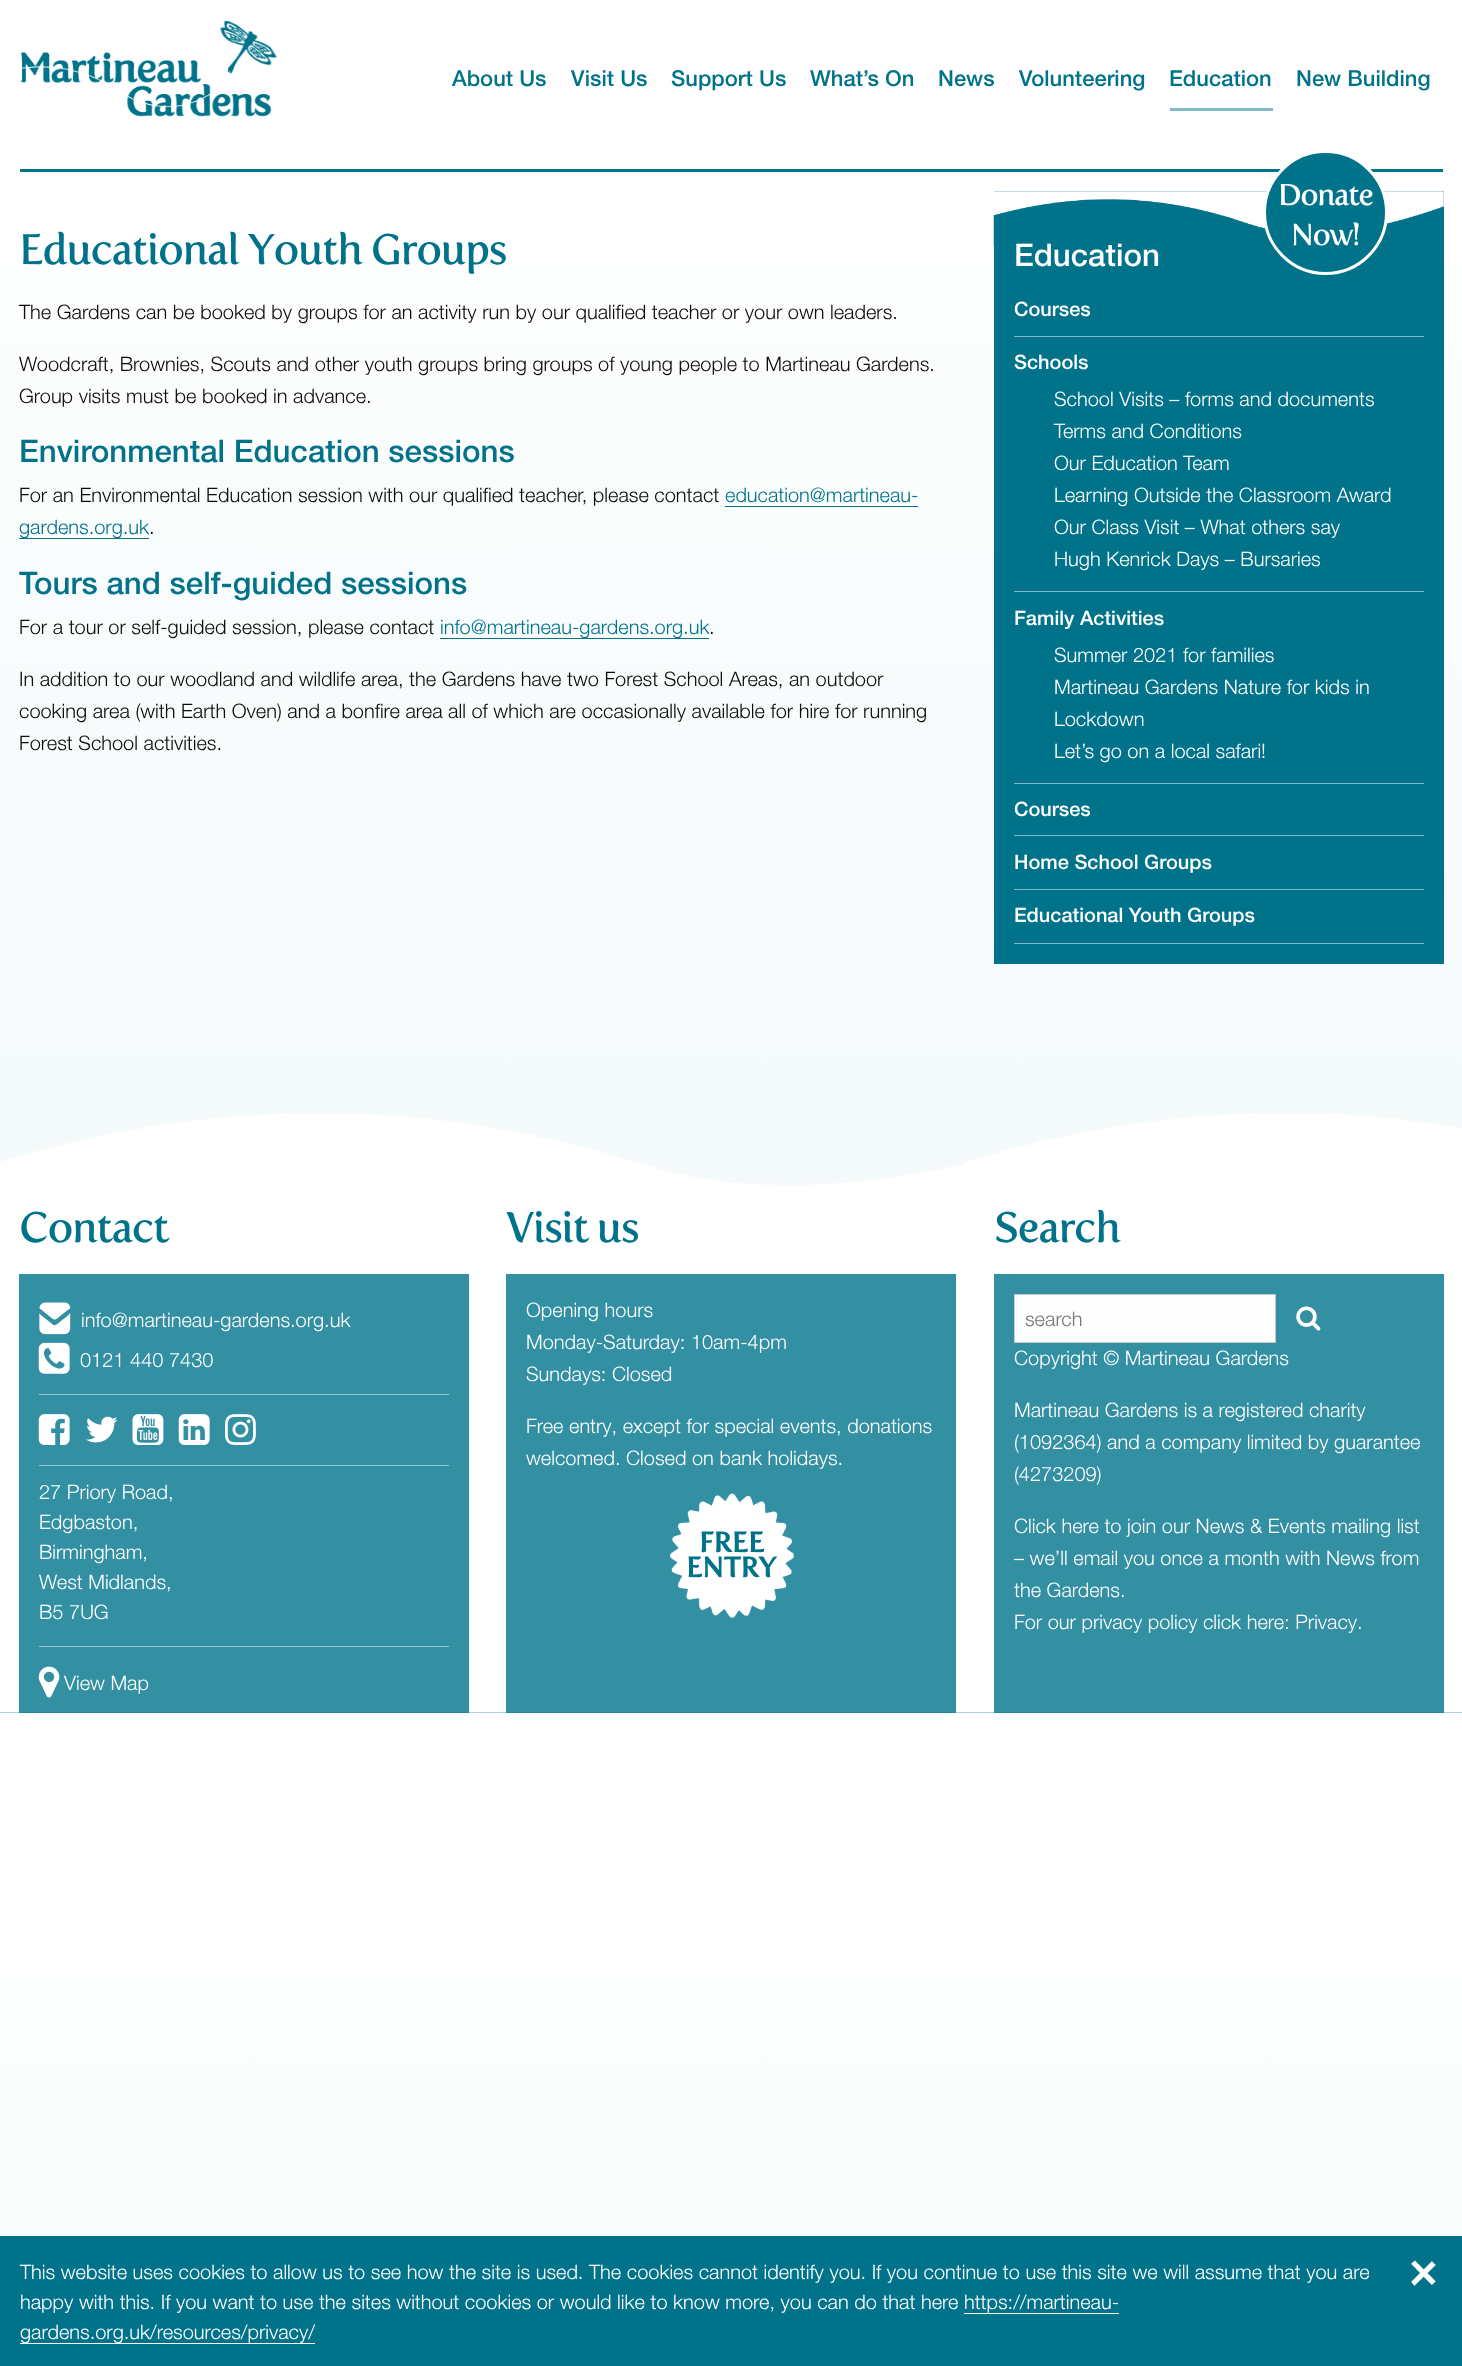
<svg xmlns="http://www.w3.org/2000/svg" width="1462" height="2366">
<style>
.a{font:500 22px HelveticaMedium;fill:#00738b}
.b{font:30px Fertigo;letter-spacing:-1.25px;fill:#fff}
.c{font:42.5px Fertigo;letter-spacing:-1.25px;fill:#00738b}
.d{font:300 20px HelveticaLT;fill:#0a0a0a}
.e{font:500 31.25px HelveticaMedium;fill:#00738b}
.f{font:300 20px HelveticaLT;fill:#00738b}
.g{font:500 31.25px HelveticaMedium;fill:#fff}
.h{font:500 20px HelveticaMedium;fill:#fff}
.i{font:300 20px HelveticaLT;fill:#fff}
.j{font:bold 28px Fertigo;fill:#00738b}
.k{font:300 20px HelveticaLT;fill:#757575}
</style>
<defs>
<linearGradient id="g1" gradientUnits="userSpaceOnUse" x1="731" y1="0" x2="731" y2="1713"><stop offset="0" stop-color="#fff"/><stop offset="0.86" stop-color="#f1f8f9"/><stop offset="1" stop-color="#5fa7b6"/></linearGradient>
<linearGradient id="g2" gradientUnits="userSpaceOnUse" x1="731" y1="1713" x2="731" y2="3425"><stop offset="0" stop-color="#fff"/><stop offset="0.86" stop-color="#f1f7f9"/><stop offset="1" stop-color="#5fa7b6"/></linearGradient>
</defs>
<rect width="100%" height="100%" fill="#fff"/>
<path fill="url(#g1)" d="M0 263h1462v1450H0z"/>
<path fill="url(#g2)" d="M0 1976h1462v260H0z"/>
<image href="2.png" x="20" y="52" width="252" height="65"/>
<image href="1.png" x="220" y="20" width="57" height="54"/>
<path fill="#7fb9c5" d="M1170 108h103v3H1170z"/>
<path fill="#00738b" d="M20 169h1423v3H20z"/>
<path fill="#00738b" d="M994 191h450v773H994z"/>
<image href="3.png" x="993" y="191" width="451" height="56"/>
<circle fill="#00738b" stroke="#fff" stroke-width="3" cx="1325.5" cy="212.5" r="61"/>
<path fill="#00738b" d="M725 506h193v1H725z"/>
<path fill="#00738b" d="M19 538h130v1H19z"/>
<path fill="#00738b" d="M440 638h269v1H440z"/>
<path fill="#80b9c5" d="M1014 336h410v1H1014z"/>
<path fill="#80b9c5" d="M1014 591h410v1H1014z"/>
<path fill="#80b9c5" d="M1014 783h410v1H1014z"/>
<path fill="#80b9c5" d="M1014 835h410v1H1014z"/>
<path fill="#80b9c5" d="M1014 889h410v1H1014z"/>
<path fill="#80b9c5" d="M1014 943h410v1H1014z"/>
<image href="4.png" x="0" y="1112" width="1462" height="601"/>
<path fill="#00738bcc" d="M19 1274h450v439H19z"/>
<image href="5.png" x="39" y="1302" width="32" height="33"/>
<image href="6.png" x="38" y="1342" width="32" height="32"/>
<path fill="#99c7d1" d="M39 1394h410v1H39z"/>
<image href="7.png" x="38" y="1414" width="32" height="31"/>
<image href="8.png" x="86" y="1416" width="32" height="27"/>
<image href="9.png" x="132" y="1414" width="32" height="31"/>
<image href="10.png" x="178" y="1414" width="32" height="31"/>
<image href="11.png" x="225" y="1414" width="31" height="31"/>
<path fill="#99c7d1" d="M39 1465h410v1H39z"/>
<path fill="#99c7d1" d="M39 1646h410v1H39z"/>
<image href="12.png" x="38" y="1666" width="22" height="32"/>
<path fill="#00738bcc" d="M506 1274h450v439H506z"/>
<image href="13.png" x="670" y="1493" width="124" height="125"/>
<path fill="#00738bcc" d="M994 1274h450v439H994z"/>
<path fill="#fefefe" stroke="#cacaca" d="M1014.5 1294.5h261v48H1014.5z"/>
<image href="14.png" x="1296" y="1306" width="25" height="25"/>
<path fill="#00738b" d="M0 2236h1462v130H0z"/>
<image href="15.png" x="1411" y="2260" width="25" height="26"/>
<path fill="#fff" d="M964 2313h155v1H964z"/>
<path fill="#fff" d="M20 2343h295v1H20z"/>
<text class="a" x="452" y="86">About Us</text>
<text class="a" x="571" y="86">Visit Us</text>
<text class="a" x="671" y="86">Support Us</text>
<text class="a" x="810" y="86">What’s On</text>
<text class="a" x="938" y="86">News</text>
<text class="a" x="1019" y="86">Volunteering</text>
<text class="a" x="1169" y="86">Education</text>
<text class="a" x="1296" y="86">New Building</text>
<text class="b" x="1278" y="205">Donate</text>
<text class="b" x="1291" y="245">Now!</text>
<text class="c" x="19" y="264">Educational Youth Groups</text>
<text class="d" x="19" y="319">The Gardens can be booked by groups for an activity run by our qualified teacher or your own leaders.</text>
<text class="d" x="19" y="371">Woodcraft, Brownies, Scouts and other youth groups bring groups of young people to Martineau Gardens.</text>
<text class="d" x="19" y="403">Group visits must be booked in advance.</text>
<text class="e" x="19" y="462">Environmental Education sessions</text>
<text class="d" x="19" y="502">For an Environmental Education session with our qualified teacher, please contact</text>
<text class="f" x="725" y="502">education@martineau-</text>
<text class="f" x="19" y="534">gardens.org.uk</text>
<text class="d" x="149" y="534">.</text>
<text class="e" x="19" y="594">Tours and self-guided sessions</text>
<text class="d" x="19" y="634">For a tour or self-guided session, please contact</text>
<text class="f" x="440" y="634">info@martineau-gardens.org.uk</text>
<text class="d" x="709" y="634">.</text>
<text class="d" x="19" y="686">In addition to our woodland and wildlife area, the Gardens have two Forest School Areas, an outdoor</text>
<text class="d" x="19" y="718">cooking area (with Earth Oven) and a bonfire area all of which are occasionally available for hire for running</text>
<text class="d" x="19" y="750">Forest School activities.</text>
<text class="g" x="1014" y="266">Education</text>
<text class="h" x="1014" y="316">Courses</text>
<text class="h" x="1014" y="369">Schools</text>
<text class="i" x="1054" y="406">School Visits – forms and documents</text>
<text class="i" x="1054" y="438">Terms and Conditions</text>
<text class="i" x="1054" y="470">Our Education Team</text>
<text class="i" x="1054" y="502">Learning Outside the Classroom Award</text>
<text class="i" x="1054" y="534">Our Class Visit – What others say</text>
<text class="i" x="1054" y="566">Hugh Kenrick Days – Bursaries</text>
<text class="h" x="1014" y="625">Family Activities</text>
<text class="i" x="1054" y="662">Summer 2021 for families</text>
<text class="i" x="1054" y="694">Martineau Gardens Nature for kids in</text>
<text class="i" x="1054" y="726">Lockdown</text>
<text class="i" x="1054" y="758">Let’s go on a local safari!</text>
<text class="h" x="1014" y="816">Courses</text>
<text class="h" x="1014" y="869">Home School Groups</text>
<text class="h" x="1014" y="922">Educational Youth Groups</text>
<text class="c" x="19" y="1242">Contact</text>
<text class="i" x="81" y="1327">info@martineau-gardens.org.uk</text>
<text class="i" x="80" y="1367">0121 440 7430</text>
<text class="i" x="39" y="1499">27 Priory Road,</text>
<text class="i" x="39" y="1529">Edgbaston,</text>
<text class="i" x="39" y="1559">Birmingham,</text>
<text class="i" x="39" y="1589">West Midlands,</text>
<text class="i" x="39" y="1619">B5 7UG</text>
<text class="i" x="64" y="1690">View Map</text>
<text class="c" x="506" y="1242">Visit us</text>
<text class="i" x="526" y="1317">Opening hours</text>
<text class="i" x="526" y="1349">Monday-Saturday: 10am-4pm</text>
<text class="i" x="526" y="1381">Sundays: Closed</text>
<text class="i" x="526" y="1433">Free entry, except for special events, donations</text>
<text class="i" x="526" y="1465">welcomed. Closed on bank holidays.</text>
<text class="j" x="699" y="1552">FREE</text>
<text class="j" x="686" y="1577">ENTRY</text>
<text class="c" x="994" y="1242">Search</text>
<text class="k" x="1025" y="1326">search</text>
<text class="i" x="1014" y="1365">Copyright © Martineau Gardens</text>
<text class="i" x="1014" y="1417">Martineau Gardens is a registered charity</text>
<text class="i" x="1014" y="1449">(1092364) and a company limited by guarantee</text>
<text class="i" x="1014" y="1481">(4273209)</text>
<text class="i" x="1014" y="1533">Click here to join our News &amp; Events mailing list</text>
<text class="i" x="1014" y="1565">– we’ll email you once a month with News from</text>
<text class="i" x="1014" y="1597">the Gardens.</text>
<text class="i" x="1014" y="1629">For our privacy policy click here: Privacy.</text>
<text class="i" x="20" y="2279">This website uses cookies to allow us to see how the site is used. The cookies cannot identify you. If you continue to use this site we will assume that you are</text>
<text class="i" x="20" y="2309">happy with this. If you want to use the sites without cookies or would like to know more, you can do that here https://martineau-</text>
<text class="i" x="20" y="2339">gardens.org.uk/resources/privacy/</text>
</svg>
